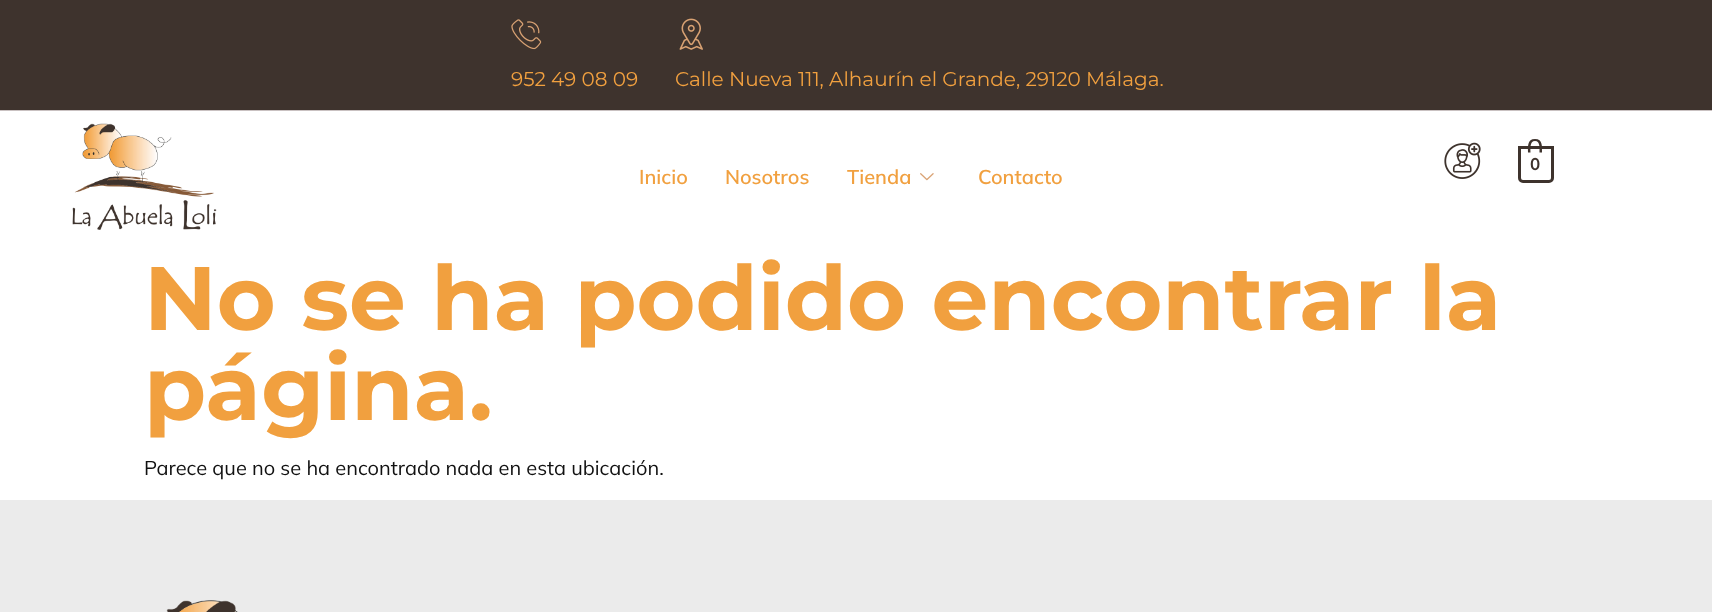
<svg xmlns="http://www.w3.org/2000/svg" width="1712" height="612">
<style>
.a{font:20px Montserrat;fill:#f1a03f}
.b{font:bold 17px Mulish;fill:#3e332d}
.c{font:600 20px Mulish;fill:#f1a03f}
.d{font:bold 90px Montserrat;fill:#f1a03f}
.e{font:20px Mulish;fill:#111}
</style>
<rect width="100%" height="100%" fill="#fff"/>
<path fill="#3e332d" d="M0 0h1712v110H0z"/>
<path fill="#c9c1c1" d="M0 110h1712v1H0z"/>
<image href="1.png" x="511" y="19" width="31" height="31"/>
<image href="2.png" x="679" y="18" width="24" height="32"/>
<image href="3.png" x="72" y="123" width="145" height="107"/>
<image href="4.png" x="1444" y="142" width="37" height="37"/>
<path fill="none" stroke="#3e332d" stroke-width="3" d="M1519.5 147.5h33v30.5c0 2-1.5 3.5-3.5 3.5h-26c-2 0-3.5-1.5-3.5-3.5z"/>
<path fill="#3e332d" fill-rule="evenodd" d="M1535 139c8 0 7 8 7 13.5h-14c0-5.5-1-13.5 7-13.5zm0 2c5.5 0 4.5 8 4.5 11.5h-9c0-3.5-1-11.5 4.5-11.5z"/>
<image href="5.png" x="920" y="173" width="14" height="8"/>
<path fill="#ebebeb" d="M0 500h1712v112H0z"/>
<image href="6.png" x="166" y="600" width="72" height="12"/>
<text class="a" x="511" y="86">952 49 08 09</text>
<text class="a" x="675" y="86">Calle Nueva 111, Alhaurín el Grande, 29120 Málaga.</text>
<text class="b" x="1530" y="170">0</text>
<text class="c" x="639" y="184">Inicio</text>
<text class="c" x="725" y="184">Nosotros</text>
<text class="c" x="847" y="184">Tienda</text>
<text class="c" x="978" y="184">Contacto</text>
<text class="d" x="144" y="330">No se ha podido encontrar la</text>
<text class="d" x="144" y="420">página.</text>
<text class="e" x="144" y="475">Parece que no se ha encontrado nada en esta ubicación.</text>
</svg>
